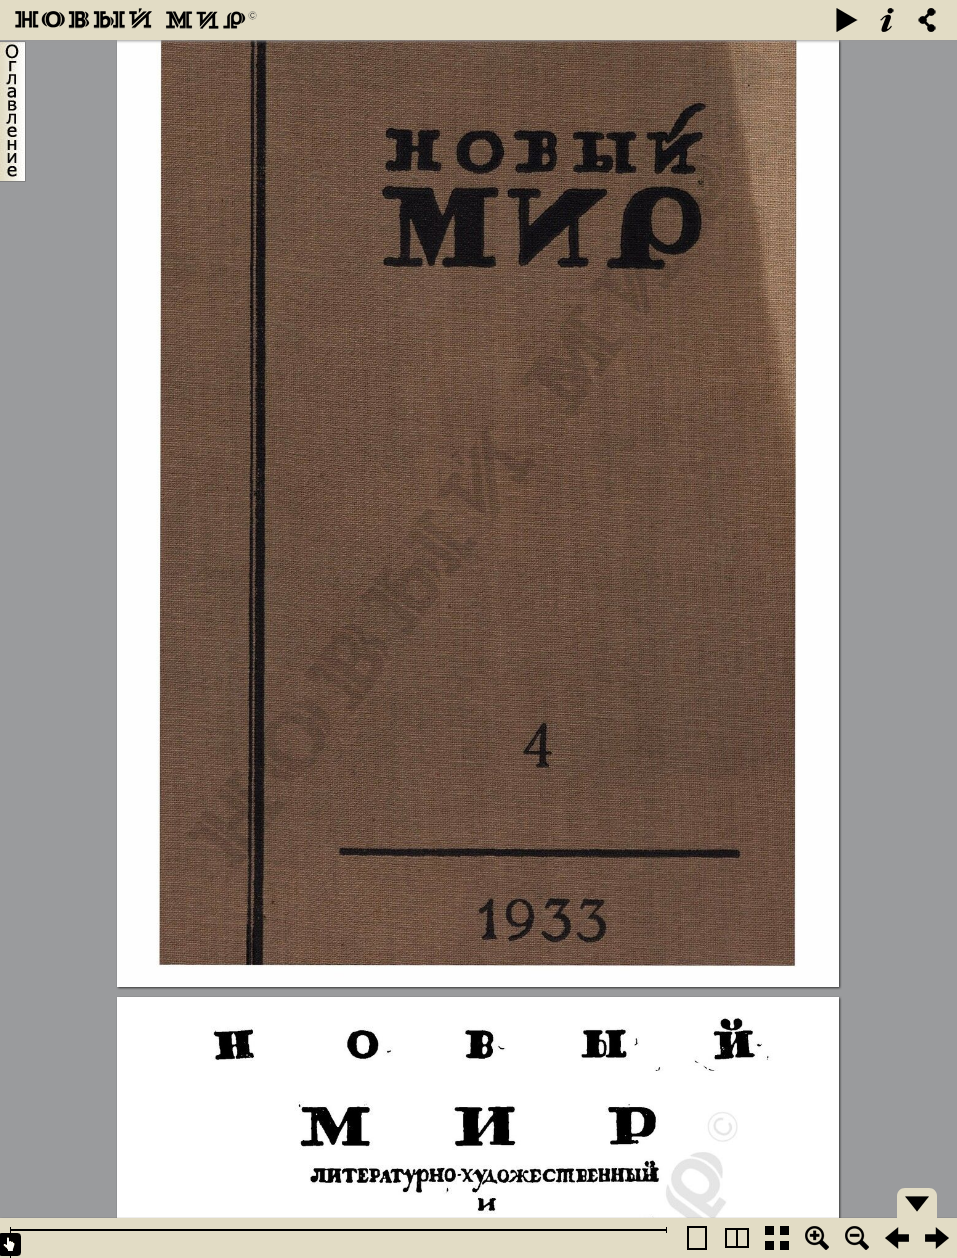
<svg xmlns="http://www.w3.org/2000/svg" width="957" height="1258">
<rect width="100%" height="100%" fill="#9a9b9d"/>
<path fill="#333" filter="blur(1px)" d="M118 1h722v987H118z"/>
<image href="5.png" x="117" y="40" width="722" height="947"/>
<image href="16.png" x="0" y="42" width="25" height="139"/>
<path fill="none" stroke="#808080" d="M-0.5 41.5h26v140H-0.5z"/>
<path fill="#999" filter="blur(1.5px)" d="M0 1h957v40H0z"/>
<path fill="#e2dcc5" d="M0 0h957v40H0z"/>
<image href="1.png" x="15" y="8" width="242" height="21"/>
<image href="2.png" x="836" y="8" width="22" height="24"/>
<image href="3.png" x="880" y="8" width="14" height="24"/>
<image href="4.png" x="918" y="8" width="18" height="24"/>
<path fill="#333" filter="blur(1px)" d="M118 998h722v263H118z"/>
<image href="6.png" x="117" y="997" width="722" height="221"/>
<path fill="#333" filter="blur(1px)" d="M1 1219h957v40H1z"/>
<path fill="#e2dcc5" d="M0 1218h957v40H0z"/>
<path fill="#e2dcc5" d="M905 1188h24c4.5 0 8 3.5 8 8v22h-40v-22c0-4.5 3.5-8 8-8z"/>
<image href="7.png" x="905" y="1196" width="24" height="16"/>
<path fill="#000" d="M10 1229h657v2H10z"/>
<path fill="#000" d="M10 1227h1v6H10z"/>
<path fill="#000" d="M666 1227h1v6H666z"/>
<image href="8.png" x="0" y="1233" width="21" height="25"/>
<image href="9.png" x="687" y="1226" width="20" height="24"/>
<image href="10.png" x="725" y="1228" width="24" height="20"/>
<image href="11.png" x="765" y="1226" width="24" height="24"/>
<image href="12.png" x="805" y="1226" width="24" height="24"/>
<image href="13.png" x="845" y="1226" width="24" height="24"/>
<image href="14.png" x="885" y="1227" width="24" height="22"/>
<image href="15.png" x="925" y="1227" width="24" height="22"/>
</svg>
